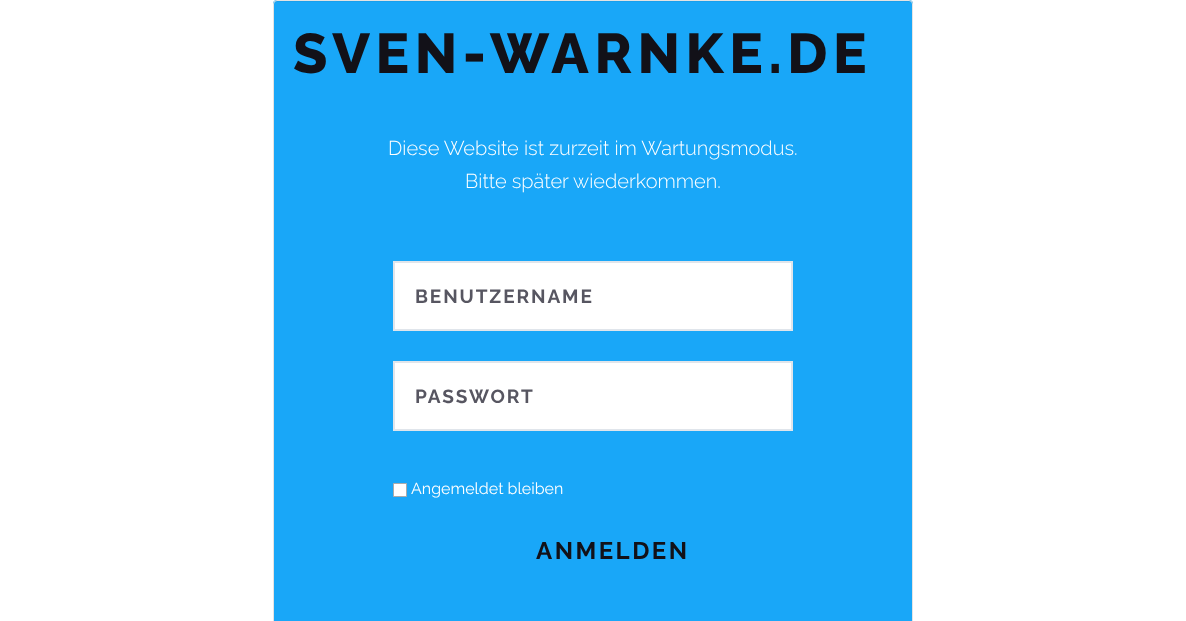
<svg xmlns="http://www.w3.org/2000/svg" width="1186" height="621">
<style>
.a{font:800 56px Raleway;letter-spacing:5.6px;fill:#121118}
.b{font:300 20px Raleway;fill:#fff}
.c{font:bold 19px Raleway;letter-spacing:1.9px;fill:#575661}
.d{font:16px Raleway;fill:#fff}
.e{font:bold 24px Raleway;letter-spacing:2.5px;fill:#121118}
</style>
<rect width="100%" height="100%" fill="#fff"/>
<rect fill="#19a7f8" x="273" width="640" height="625" rx="4"/>
<path fill="#189fec" d="M277 2h632c2 0 3 1 3 3v-1c0-2-1-3-3-3h-632c-2 0-3 1-3 3v1c0-2 1-3 3-3z"/>
<rect fill="none" stroke="#e3e3e3" x="273.5" y="0.5" width="639" height="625" rx="3.5"/>
<path fill="#fff" stroke="#e0e5eb" stroke-width="2" d="M394 262h398v68H394z"/>
<path fill="#fff" stroke="#e0e5eb" stroke-width="2" d="M394 362h398v68H394z"/>
<path fill="#fff" stroke="#ababab" d="M393.5 483.5h13v13H393.5z"/>
<text class="a" x="293" y="73">SVEN-WARNKE.DE</text>
<text class="b" x="388" y="155">Diese Website ist zurzeit im Wartungsmodus.</text>
<text class="b" x="465" y="188">Bitte später wiederkommen.</text>
<text class="c" x="415" y="303">BENUTZERNAME</text>
<text class="c" x="415" y="403">PASSWORT</text>
<text class="d" x="411" y="494">Angemeldet bleiben</text>
<text class="e" x="536" y="559">ANMELDEN</text>
</svg>
